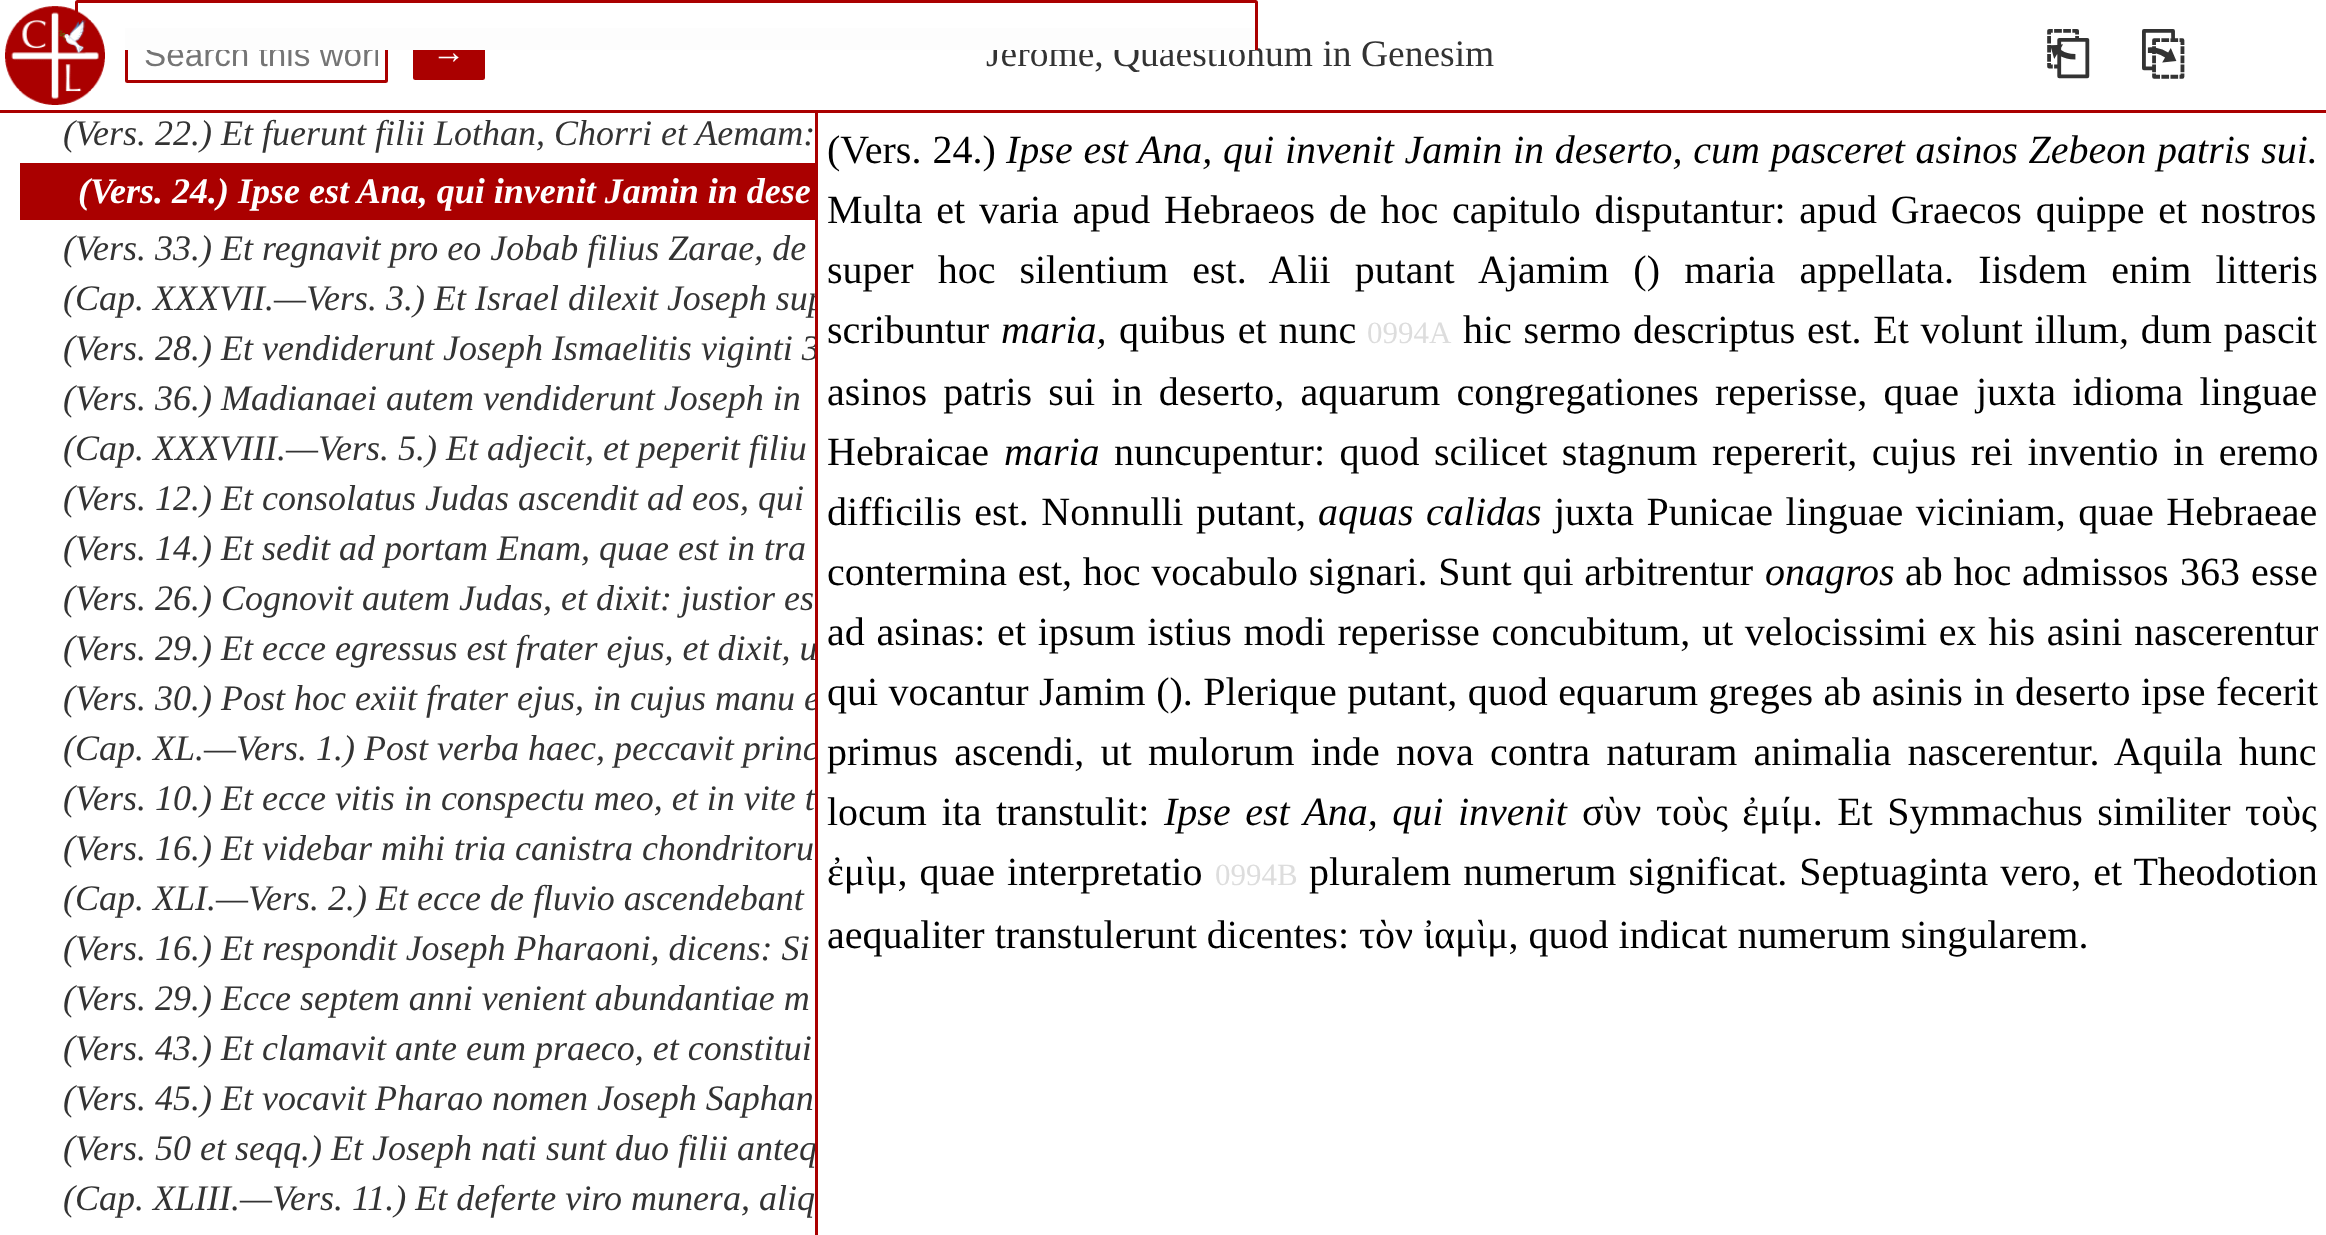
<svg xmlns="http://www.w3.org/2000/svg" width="2326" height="1235">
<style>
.a{font:33.25px Liberation Sans;fill:#757575}
.b{font:33.25px Liberation Sans;fill:#fff}
.c{font:37.5px Liberation Serif;fill:#333}
.d{font:bold 56px FreeSerif;fill:#333}
.e{font:italic 36px Liberation Serif;fill:#333}
.f{font:italic bold 36px Liberation Serif;fill:#fff}
.g{font:40px Liberation Serif;fill:#000}
.h{font:italic 40px Liberation Serif;fill:#000}
.i{font:31px Liberation Serif;fill:#ddd}
</style>
<defs>
<clipPath id="clip1"><path d="M135 38h243v37H135z"/></clipPath>
<clipPath id="clip2"><path d="M20 278h795v42H20z"/></clipPath>
<clipPath id="clip3"><path d="M20 328h795v42H20z"/></clipPath>
<clipPath id="clip4"><path d="M20 628h795v42H20z"/></clipPath>
<clipPath id="clip5"><path d="M20 678h795v42H20z"/></clipPath>
<clipPath id="clip6"><path d="M20 728h795v42H20z"/></clipPath>
<clipPath id="clip7"><path d="M20 1128h795v42H20z"/></clipPath>
<clipPath id="clip8"><path d="M75 0h1183v50H75z"/></clipPath>
</defs>
<rect width="100%" height="100%" fill="#fff"/>
<path fill="#a00" d="M0 110h2326v3H0z"/>
<rect fill="none" stroke="#a00" stroke-width="3" x="126.5" y="29.5" width="260" height="52" rx="1"/>
<rect fill="#a00" stroke="#a00" stroke-width="3" x="414.5" y="31.5" width="69" height="47" rx="1"/>
<path fill="#a00" d="M20 163h795v57H20z"/>
<path fill="#a00" d="M815 113h3v1122H815z"/>
<g clip-path="url(#clip1)">
<text class="a" x="144" y="66">Search this work</text>
</g>
<text class="b" x="432" y="63">→</text>
<text class="c" x="986" y="66">Jerome, Quaestionum in Genesim</text>
<path fill="#fdfdfd" d="M125 28h1133v22H125z"/>
<text class="d" x="2045" y="73">⎗</text>
<text class="d" x="2140" y="73">⎘</text>
<text class="e" x="63" y="145">(Vers. 22.) Et fuerunt filii Lothan, Chorri et Aemam:</text>
<text class="f" x="78" y="203">(Vers. 24.) Ipse est Ana, qui invenit Jamin in dese</text>
<text class="e" x="63" y="260">(Vers. 33.) Et regnavit pro eo Jobab filius Zarae, de</text>
<g clip-path="url(#clip2)">
<text class="e" x="63" y="310">(Cap. XXXVII.—Vers. 3.) Et Israel dilexit Joseph sup</text>
</g>
<g clip-path="url(#clip3)">
<text class="e" x="63" y="360">(Vers. 28.) Et vendiderunt Joseph Ismaelitis viginti 3</text>
</g>
<text class="e" x="63" y="410">(Vers. 36.) Madianaei autem vendiderunt Joseph in</text>
<text class="e" x="63" y="460">(Cap. XXXVIII.—Vers. 5.) Et adjecit, et peperit filiu</text>
<text class="e" x="63" y="510">(Vers. 12.) Et consolatus Judas ascendit ad eos, qui</text>
<text class="e" x="63" y="560">(Vers. 14.) Et sedit ad portam Enam, quae est in tra</text>
<text class="e" x="63" y="610">(Vers. 26.) Cognovit autem Judas, et dixit: justior es</text>
<g clip-path="url(#clip4)">
<text class="e" x="63" y="660">(Vers. 29.) Et ecce egressus est frater ejus, et dixit, u</text>
</g>
<g clip-path="url(#clip5)">
<text class="e" x="63" y="710">(Vers. 30.) Post hoc exiit frater ejus, in cujus manu e</text>
</g>
<g clip-path="url(#clip6)">
<text class="e" x="63" y="760">(Cap. XL.—Vers. 1.) Post verba haec, peccavit princ</text>
</g>
<text class="e" x="63" y="810">(Vers. 10.) Et ecce vitis in conspectu meo, et in vite t</text>
<text class="e" x="63" y="860">(Vers. 16.) Et videbar mihi tria canistra chondritoru</text>
<text class="e" x="63" y="910">(Cap. XLI.—Vers. 2.) Et ecce de fluvio ascendebant</text>
<text class="e" x="63" y="960">(Vers. 16.) Et respondit Joseph Pharaoni, dicens: Si</text>
<text class="e" x="63" y="1010">(Vers. 29.) Ecce septem anni venient abundantiae m</text>
<text class="e" x="63" y="1060">(Vers. 43.) Et clamavit ante eum praeco, et constitui</text>
<text class="e" x="63" y="1110">(Vers. 45.) Et vocavit Pharao nomen Joseph Saphan</text>
<g clip-path="url(#clip7)">
<text class="e" x="63" y="1160">(Vers. 50 et seqq.) Et Joseph nati sunt duo filii anteq</text>
</g>
<text class="e" x="63" y="1210">(Cap. XLIII.—Vers. 11.) Et deferte viro munera, aliq</text>
<text class="g" x="827" y="163" word-spacing="1">(Vers. 24.)</text>
<text class="h" x="1006" y="163" word-spacing="0.75">Ipse est Ana, qui invenit Jamin in deserto, cum pasceret asinos Zebeon patris sui.</text>
<text class="g" x="827" y="223" word-spacing="3.75">Multa et varia apud Hebraeos de hoc capitulo disputantur: apud Graecos quippe et nostros</text>
<g clip-path="url(#clip8)">
<rect fill="none" stroke="#a00" stroke-width="3" x="76.5" y="1.5" width="1180" height="252" rx="1"/>
</g>
<image href="1.png" x="5" y="6" width="100" height="99"/>
<text class="g" x="827" y="283" word-spacing="14">super hoc silentium est. Alii putant</text>
<text class="g" x="1478" y="283" word-spacing="14.25">Ajamim () maria appellata. Iisdem enim litteris</text>
<text class="g" x="827" y="343">scribuntur</text>
<text class="h" x="1001" y="343">maria,</text>
<text class="g" x="1119" y="343" word-spacing="2">quibus et nunc</text>
<text class="i" x="1367" y="343">0994A</text>
<text class="g" x="1463" y="343" word-spacing="1.75">hic sermo descriptus est. Et volunt illum, dum pascit</text>
<text class="g" x="827" y="405" word-spacing="6.25">asinos patris sui in deserto, aquarum congregationes reperisse, quae</text>
<text class="g" x="1976" y="405" word-spacing="6.25">juxta idioma linguae</text>
<text class="g" x="827" y="465">Hebraicae</text>
<text class="h" x="1004" y="465">maria</text>
<text class="g" x="1114" y="465" word-spacing="4.5">nuncupentur: quod scilicet stagnum repererit, cujus rei inventio in eremo</text>
<text class="g" x="827" y="525" word-spacing="2.5">difficilis est. Nonnulli putant,</text>
<text class="h" x="1318" y="525" word-spacing="2.5">aquas calidas</text>
<text class="g" x="1554" y="525" word-spacing="2.5">juxta Punicae linguae viciniam, quae Hebraeae</text>
<text class="g" x="827" y="585" word-spacing="0.75">contermina est, hoc vocabulo signari. Sunt qui arbitrentur</text>
<text class="h" x="1765" y="585">onagros</text>
<text class="g" x="1905" y="585" word-spacing="0.75">ab hoc admissos</text>
<text class="g" x="2180" y="585">363</text>
<text class="g" x="2251" y="585">esse</text>
<text class="g" x="827" y="645" word-spacing="1.75">ad asinas: et ipsum istius modi reperisse concubitum, ut velocissimi ex his asini nascerentur</text>
<text class="g" x="827" y="705" word-spacing="0.5">qui vocantur Jamim (). Plerique putant, quod equarum greges ab asinis in deserto ipse fecerit</text>
<text class="g" x="827" y="765" word-spacing="6.25">primus ascendi, ut mulorum inde</text>
<text class="g" x="1396" y="765" word-spacing="6.25">nova contra naturam animalia nascerentur. Aquila hunc</text>
<text class="g" x="827" y="825" word-spacing="4.5">locum ita transtulit:</text>
<text class="h" x="1164" y="825" word-spacing="4.5">Ipse est Ana, qui invenit</text>
<text class="g" x="1582" y="825">σὺν</text>
<text class="g" x="1656" y="825" word-spacing="4.5">τοὺς ἐμίμ. Et Symmachus similiter τοὺς</text>
<text class="g" x="827" y="885" word-spacing="2">ἐμὶμ, quae interpretatio</text>
<text class="i" x="1215" y="885">0994B</text>
<text class="g" x="1309" y="885" word-spacing="2">pluralem numerum significat. Septuaginta vero, et Theodotion</text>
<text class="g" x="827" y="948">aequaliter transtulerunt dicentes: τὸν ἰαμὶμ, quod indicat numerum singularem.</text>
</svg>
